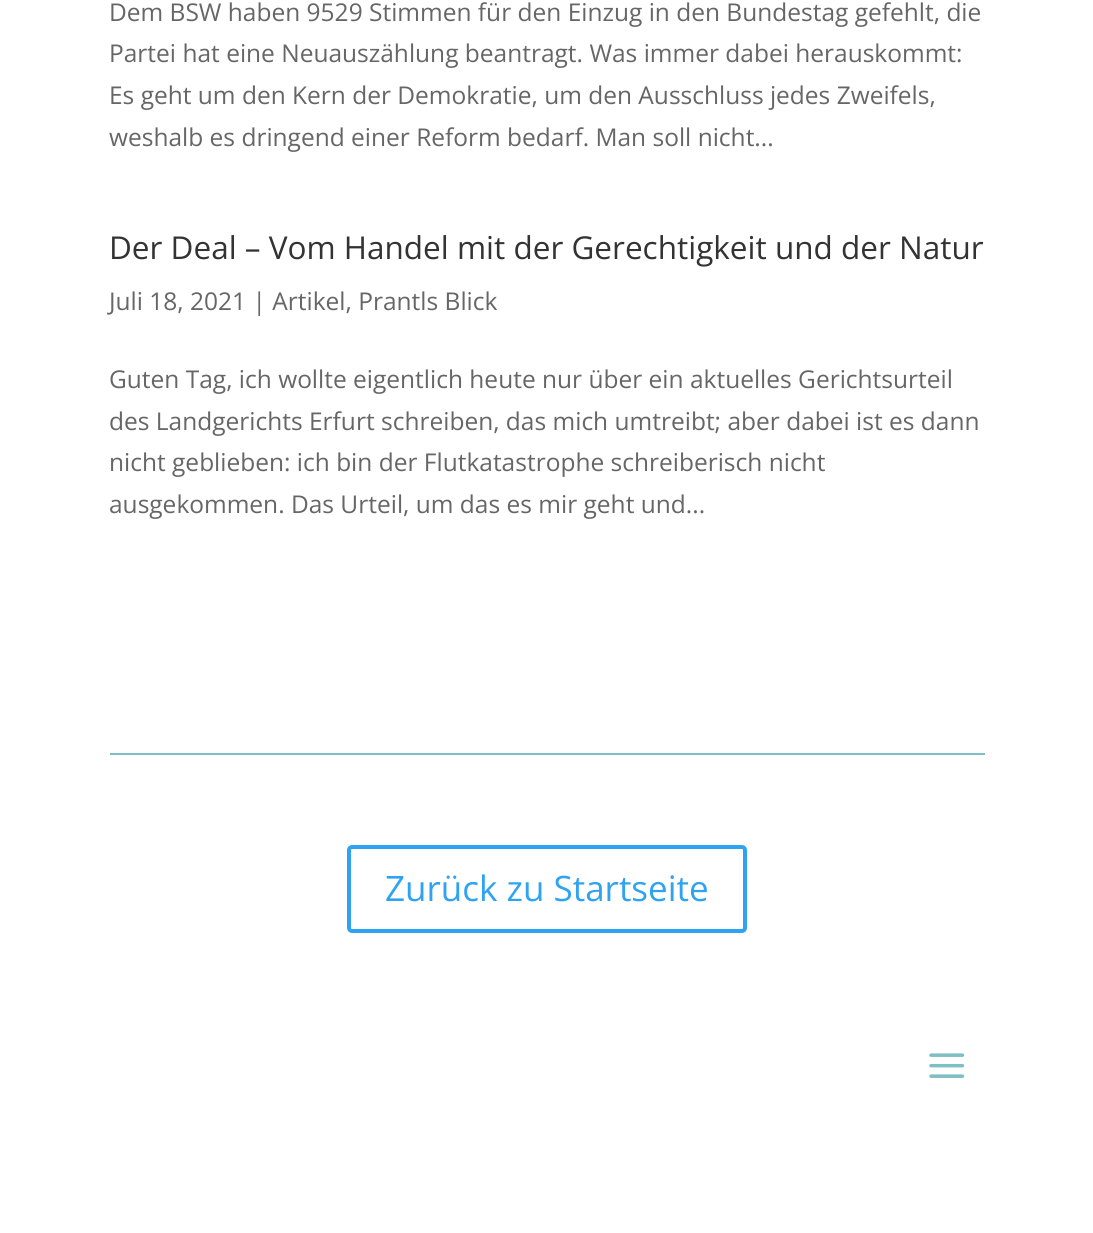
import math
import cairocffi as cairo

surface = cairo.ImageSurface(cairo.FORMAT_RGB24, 1093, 1233)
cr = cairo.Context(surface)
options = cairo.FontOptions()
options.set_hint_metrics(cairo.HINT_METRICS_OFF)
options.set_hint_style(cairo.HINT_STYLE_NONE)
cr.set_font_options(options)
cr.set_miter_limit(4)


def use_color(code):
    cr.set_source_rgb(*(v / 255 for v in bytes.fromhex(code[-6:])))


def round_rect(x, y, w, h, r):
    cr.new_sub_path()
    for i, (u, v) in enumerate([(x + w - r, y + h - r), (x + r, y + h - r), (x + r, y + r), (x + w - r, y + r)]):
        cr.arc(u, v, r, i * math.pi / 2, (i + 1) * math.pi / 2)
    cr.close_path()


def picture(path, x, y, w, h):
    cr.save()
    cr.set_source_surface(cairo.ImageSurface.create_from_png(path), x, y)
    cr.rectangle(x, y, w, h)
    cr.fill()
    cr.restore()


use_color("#ffffff")
cr.paint()
cr.select_font_face("Open Sans")
cr.set_font_size(24.5)
use_color("#666666")
cr.move_to(109, 21)
cr.show_text("Dem BSW haben 9529 Stimmen für den Einzug in den Bundestag gefehlt, die")
cr.move_to(109, 62)
cr.show_text("Partei hat eine Neuauszählung beantragt. Was immer dabei herauskommt:")
cr.move_to(109, 104)
cr.show_text("Es geht um den Kern der Demokratie, um den Ausschluss jedes Zweifels,")
cr.move_to(109, 146)
cr.show_text("weshalb es dringend einer Reform bedarf. Man soll nicht...")
cr.set_font_size(31.5)
use_color("#333333")
cr.move_to(109, 259)
cr.show_text("Der Deal – Vom Handel mit der Gerechtigkeit und der Natur")
cr.set_font_size(24.5)
use_color("#666666")
cr.move_to(109, 310)
cr.show_text("Juli 18, 2021 | Artikel, Prantls Blick")
cr.move_to(109, 388)
cr.show_text("Guten Tag, ich wollte eigentlich heute nur über ein aktuelles Gerichtsurteil")
cr.move_to(109, 430)
cr.show_text("des Landgerichts Erfurt schreiben, das mich umtreibt; aber dabei ist es dann")
cr.move_to(109, 471)
cr.show_text("nicht geblieben: ich bin der Flutkatastrophe schreiberisch nicht")
cr.move_to(109, 513)
cr.show_text("ausgekommen. Das Urteil, um das es mir geht und...")
use_color("#7ebec5")
cr.rectangle(110, 753, 875, 2)
cr.fill()
round_rect(349, 847, 396, 84, 3)
use_color("#2ea3f2")
cr.set_line_width(4)
cr.stroke()
cr.set_font_size(35)
cr.move_to(385, 901)
cr.show_text("Zurück zu Startseite")
picture("img1.png", 929, 1053, 36, 25)
surface.write_to_png("result.png")
